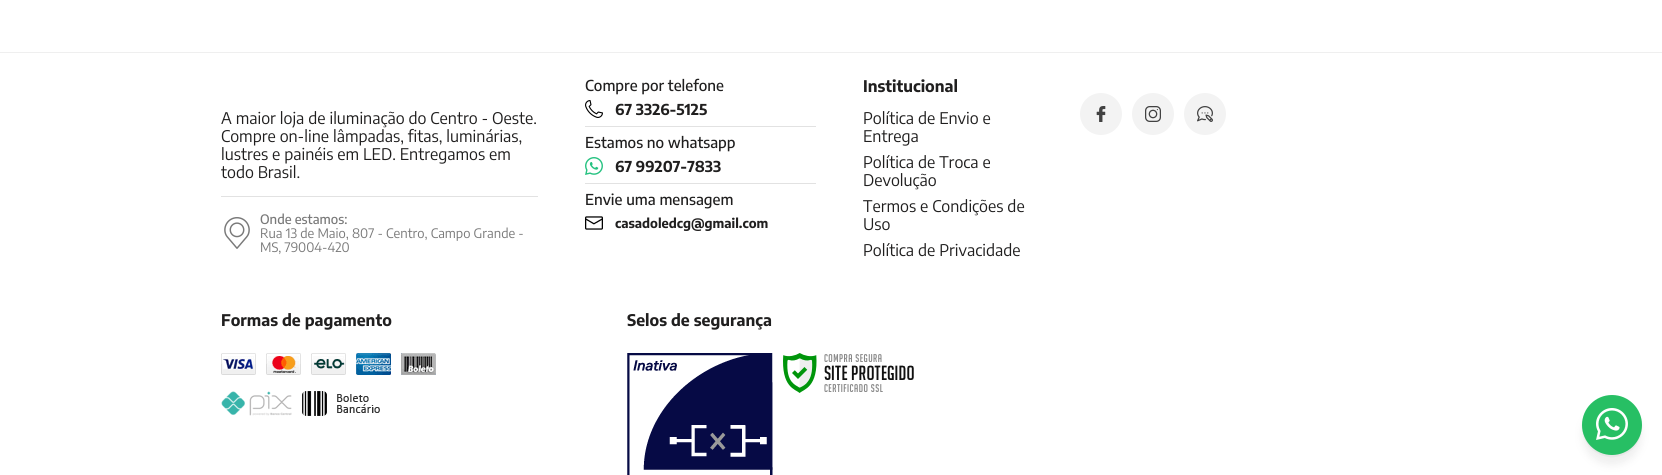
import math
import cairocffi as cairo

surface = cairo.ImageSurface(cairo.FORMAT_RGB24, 1662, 475)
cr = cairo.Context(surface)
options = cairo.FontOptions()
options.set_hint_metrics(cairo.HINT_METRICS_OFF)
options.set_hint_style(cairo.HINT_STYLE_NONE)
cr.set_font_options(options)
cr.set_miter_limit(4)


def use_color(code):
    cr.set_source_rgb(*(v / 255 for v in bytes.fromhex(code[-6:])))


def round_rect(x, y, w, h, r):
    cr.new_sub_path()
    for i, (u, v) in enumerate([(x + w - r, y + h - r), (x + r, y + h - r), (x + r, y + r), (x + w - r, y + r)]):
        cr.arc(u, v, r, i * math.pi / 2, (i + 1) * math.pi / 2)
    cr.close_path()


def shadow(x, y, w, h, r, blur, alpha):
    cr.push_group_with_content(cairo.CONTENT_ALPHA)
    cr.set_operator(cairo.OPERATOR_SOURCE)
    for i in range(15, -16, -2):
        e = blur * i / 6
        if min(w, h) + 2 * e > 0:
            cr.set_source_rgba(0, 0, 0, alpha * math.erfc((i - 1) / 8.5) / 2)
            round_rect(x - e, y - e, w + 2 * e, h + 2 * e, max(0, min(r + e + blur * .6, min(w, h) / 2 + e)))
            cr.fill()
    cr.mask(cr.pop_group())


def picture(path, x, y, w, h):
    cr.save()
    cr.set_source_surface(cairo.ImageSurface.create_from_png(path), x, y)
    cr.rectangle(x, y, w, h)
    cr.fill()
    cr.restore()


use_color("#ffffff")
cr.paint()
use_color("#efefef")
cr.rectangle(0, 52, 1662, 1)
cr.fill()
cr.select_font_face("Encode Sans Condensed")
cr.set_font_size(16)
use_color("#201f1f")
cr.move_to(221, 124)
cr.show_text("A maior loja de iluminação do Centro - Oeste.")
cr.move_to(221, 142)
cr.show_text("Compre on-line lâmpadas, fitas, luminárias,")
cr.move_to(221, 160)
cr.show_text("lustres e painéis em LED. Entregamos em")
cr.move_to(221, 178)
cr.show_text("todo Brasil.")
use_color("#e2e2e2")
cr.rectangle(221, 196, 317, 1)
cr.fill()
picture("img1.png", 224, 217, 26, 32)
cr.select_font_face("Encode Sans Condensed Medium")
cr.set_font_size(13)
use_color("#797979")
cr.move_to(260, 224)
cr.show_text("Onde estamos:")
cr.select_font_face("Encode Sans Condensed")
cr.move_to(260, 238)
cr.show_text("Rua 13 de Maio, 807 - Centro, Campo Grande -")
cr.move_to(260, 252)
cr.show_text("MS, 79004-420")
use_color("#e2e2e2")
cr.rectangle(585, 126, 231, 1)
cr.fill()
cr.select_font_face("Encode Sans Condensed Medium")
cr.set_font_size(15)
use_color("#201f1f")
cr.move_to(585, 91)
cr.show_text("Compre por telefone")
picture("img2.png", 585, 100, 18, 18)
cr.select_font_face("Encode Sans Condensed", cairo.FONT_SLANT_NORMAL, cairo.FONT_WEIGHT_BOLD)
cr.move_to(615, 115)
cr.show_text("67 3326-5125")
use_color("#e2e2e2")
cr.rectangle(585, 183, 231, 1)
cr.fill()
cr.select_font_face("Encode Sans Condensed Medium")
use_color("#201f1f")
cr.move_to(585, 148)
cr.show_text("Estamos no whatsapp")
picture("img3.png", 585, 157, 18, 18)
cr.select_font_face("Encode Sans Condensed", cairo.FONT_SLANT_NORMAL, cairo.FONT_WEIGHT_BOLD)
cr.move_to(615, 172)
cr.show_text("67 99207-7833")
cr.select_font_face("Encode Sans Condensed Medium")
cr.move_to(585, 205)
cr.show_text("Envie uma mensagem")
picture("img4.png", 585, 216, 18, 14)
cr.select_font_face("Encode Sans Condensed", cairo.FONT_SLANT_NORMAL, cairo.FONT_WEIGHT_BOLD)
cr.set_font_size(13)
cr.move_to(615, 228)
cr.show_text("casadoledcg@gmail.com")
cr.set_font_size(16)
cr.move_to(863, 92)
cr.show_text("Institucional")
cr.select_font_face("Encode Sans Condensed")
cr.move_to(863, 124)
cr.show_text("Política de Envio e")
cr.move_to(863, 142)
cr.show_text("Entrega")
cr.move_to(863, 168)
cr.show_text("Política de Troca e")
cr.move_to(863, 186)
cr.show_text("Devolução")
cr.move_to(863, 212)
cr.show_text("Termos e Condições de")
cr.move_to(863, 230)
cr.show_text("Uso")
cr.move_to(863, 256)
cr.show_text("Política de Privacidade")
use_color("#f3f3f3")
cr.new_path()
cr.arc(1101, 114, 21, 0, 2 * math.pi)
cr.fill()
picture("img5.png", 1096, 106, 10, 16)
cr.arc(1153, 114, 21, 0, 2 * math.pi)
cr.fill()
picture("img6.png", 1145, 106, 16, 16)
cr.arc(1205, 114, 21, 0, 2 * math.pi)
cr.fill()
picture("img7.png", 1197, 106, 16, 16)
cr.select_font_face("Encode Sans Condensed", cairo.FONT_SLANT_NORMAL, cairo.FONT_WEIGHT_BOLD)
use_color("#201f1f")
cr.move_to(221, 326)
cr.show_text("Formas de pagamento")
picture("img8.png", 221, 353, 35, 22)
picture("img9.png", 266, 353, 35, 22)
picture("img10.png", 311, 353, 35, 22)
picture("img11.png", 356, 353, 35, 22)
picture("img12.png", 401, 353, 35, 22)
picture("img13.png", 221, 391, 71, 25)
picture("img14.png", 302, 391, 78, 25)
cr.move_to(627, 326)
cr.show_text("Selos de segurança")
picture("img15.png", 627, 353, 146, 122)
picture("img16.png", 783, 353, 131, 40)
use_color("#676767")
shadow(1582, 405, 60, 60, 30, 4, 0.1)
use_color("#000000")
shadow(1582, 397, 60, 60, 30, 0.5, 0.04)
use_color("#27bf64")
cr.arc(1612, 425, 30, 0, 2 * math.pi)
cr.fill()
picture("img17.png", 1596, 408, 32, 32)
surface.write_to_png("result.png")
